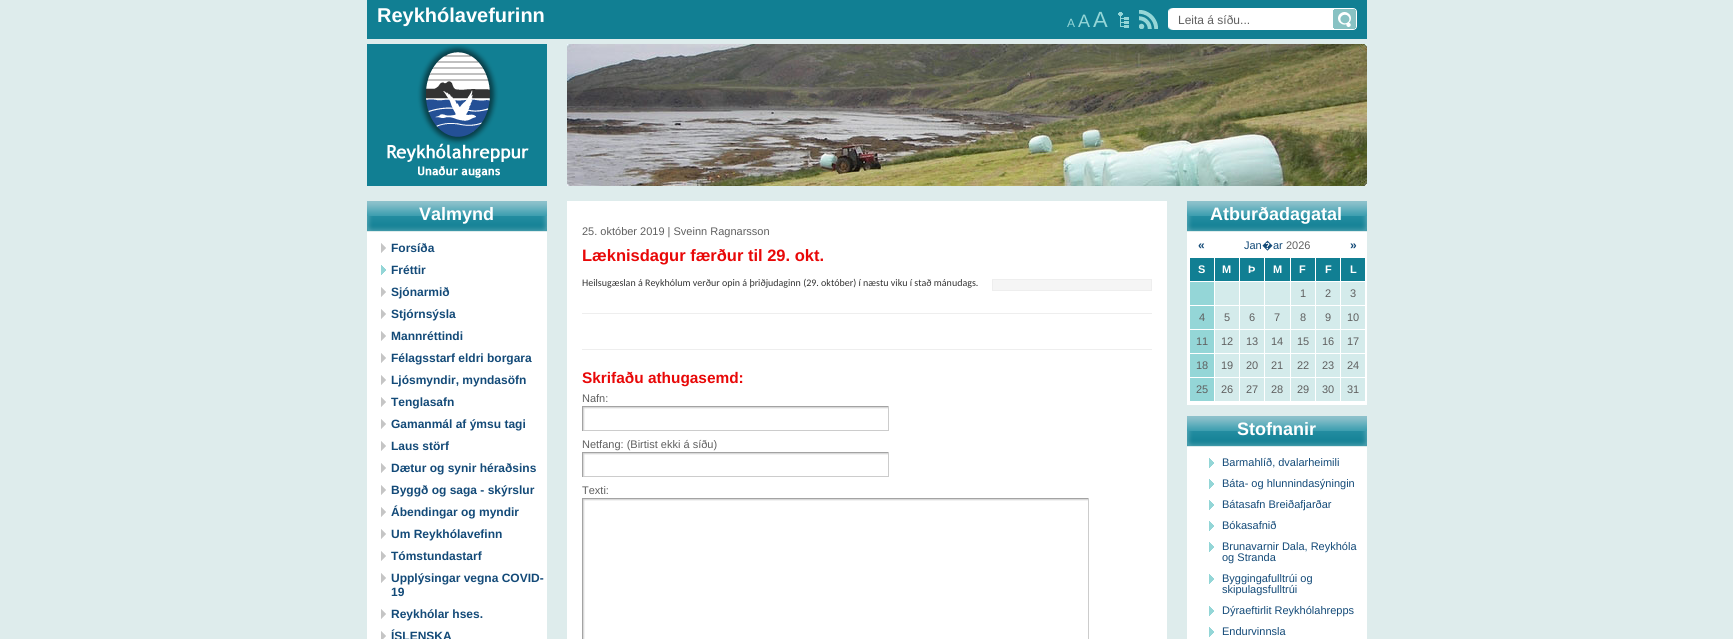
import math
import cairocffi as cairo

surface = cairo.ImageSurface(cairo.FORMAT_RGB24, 1733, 639)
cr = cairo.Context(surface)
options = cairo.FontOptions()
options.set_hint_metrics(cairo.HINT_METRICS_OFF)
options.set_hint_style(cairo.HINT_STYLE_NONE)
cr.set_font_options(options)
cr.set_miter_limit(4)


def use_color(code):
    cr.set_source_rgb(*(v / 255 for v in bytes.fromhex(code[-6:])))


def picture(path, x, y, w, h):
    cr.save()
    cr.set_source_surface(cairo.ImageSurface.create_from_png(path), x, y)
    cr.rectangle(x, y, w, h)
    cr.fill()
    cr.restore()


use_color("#deecec")
cr.paint()
use_color("#117f93")
cr.rectangle(367, 0, 1000, 39)
cr.fill()
cr.select_font_face("Liberation Sans", cairo.FONT_SLANT_NORMAL, cairo.FONT_WEIGHT_BOLD)
cr.set_font_size(20)
use_color("#ffffff")
cr.move_to(377, 22)
cr.show_text("Reykhólavefurinn")
cr.select_font_face("Liberation Sans")
cr.set_font_size(12)
use_color("#94d6d7")
cr.move_to(1067, 27)
cr.show_text("A")
cr.set_font_size(18)
cr.move_to(1078, 27)
cr.show_text("A")
cr.set_font_size(22)
cr.move_to(1093, 27)
cr.show_text("A")
picture("img1.png", 1118, 12, 11, 16)
picture("img2.png", 1139, 10, 19, 19)
use_color("#ffffff")
cr.rectangle(1173, 8, 160, 22)
cr.fill()
picture("img3.png", 1168, 8, 5, 22)
cr.set_font_size(12)
use_color("#5f5f5f")
cr.move_to(1178, 24)
cr.show_text("Leita á síðu...")
picture("img4.png", 1333, 8, 24, 22)
picture("img5.png", 367, 44, 180, 142)
picture("img6.png", 567, 44, 800, 142)
use_color("#ffffff")
cr.rectangle(367, 232, 180, 407)
cr.fill()
picture("img7.png", 367, 201, 180, 31)
cr.select_font_face("Liberation Sans", cairo.FONT_SLANT_NORMAL, cairo.FONT_WEIGHT_BOLD)
cr.set_font_size(18)
cr.move_to(419, 220)
cr.show_text("Valmynd")
picture("img8.png", 381, 243, 5, 10)
cr.set_font_size(12)
use_color("#134a78")
cr.move_to(391, 252)
cr.show_text("Forsíða")
picture("img9.png", 381, 265, 5, 10)
cr.move_to(391, 274)
cr.show_text("Fréttir")
picture("img8.png", 381, 287, 5, 10)
cr.move_to(391, 296)
cr.show_text("Sjónarmið")
picture("img8.png", 381, 309, 5, 10)
cr.move_to(391, 318)
cr.show_text("Stjórnsýsla")
picture("img8.png", 381, 331, 5, 10)
cr.move_to(391, 340)
cr.show_text("Mannréttindi")
picture("img8.png", 381, 353, 5, 10)
cr.move_to(391, 362)
cr.show_text("Félagsstarf eldri borgara")
picture("img8.png", 381, 375, 5, 10)
cr.move_to(391, 384)
cr.show_text("Ljósmyndir, myndasöfn")
picture("img8.png", 381, 397, 5, 10)
cr.move_to(391, 406)
cr.show_text("Tenglasafn")
picture("img8.png", 381, 419, 5, 10)
cr.move_to(391, 428)
cr.show_text("Gamanmál af ýmsu tagi")
picture("img8.png", 381, 441, 5, 10)
cr.move_to(391, 450)
cr.show_text("Laus störf")
picture("img8.png", 381, 463, 5, 10)
cr.move_to(391, 472)
cr.show_text("Dætur og synir héraðsins")
picture("img8.png", 381, 485, 5, 10)
cr.move_to(391, 494)
cr.show_text("Byggð og saga - skýrslur")
picture("img8.png", 381, 507, 5, 10)
cr.move_to(391, 516)
cr.show_text("Ábendingar og myndir")
picture("img8.png", 381, 529, 5, 10)
cr.move_to(391, 538)
cr.show_text("Um Reykhólavefinn")
picture("img8.png", 381, 551, 5, 10)
cr.move_to(391, 560)
cr.show_text("Tómstundastarf")
picture("img8.png", 381, 573, 5, 10)
cr.move_to(391, 582)
cr.show_text("Upplýsingar vegna COVID-")
cr.move_to(391, 596)
cr.show_text("19")
picture("img8.png", 381, 609, 5, 10)
cr.move_to(391, 618)
cr.show_text("Reykhólar hses.")
picture("img10.png", 381, 631, 5, 8)
cr.move_to(391, 640)
cr.show_text("ÍSLENSKA")
use_color("#ffffff")
cr.rectangle(567, 201, 600, 438)
cr.fill()
cr.select_font_face("Liberation Sans")
cr.set_font_size(11)
use_color("#5f5f5f")
cr.move_to(582, 235)
cr.show_text("25. október 2019 | Sveinn Ragnarsson")
cr.select_font_face("Liberation Sans", cairo.FONT_SLANT_NORMAL, cairo.FONT_WEIGHT_BOLD)
cr.set_font_size(16.5)
use_color("#e80808")
cr.move_to(582, 261)
cr.show_text("Læknisdagur færður til 29. okt.")
cr.select_font_face("Carlito")
cr.set_font_size(10)
use_color("#333333")
cr.move_to(582, 286)
cr.show_text("Heilsugæslan á Reykhólum verður opin á þriðjudaginn (29. október) í næstu viku í stað mánudags.")
use_color("#f5f5f5")
cr.rectangle(992.5, 279.5, 159, 11)
cr.fill_preserve()
use_color("#eeeeee")
cr.set_line_width(1)
cr.stroke()
cr.rectangle(582, 313, 570, 1)
cr.fill()
cr.rectangle(582, 349, 570, 1)
cr.fill()
cr.select_font_face("Liberation Sans", cairo.FONT_SLANT_NORMAL, cairo.FONT_WEIGHT_BOLD)
cr.set_font_size(15.4)
use_color("#e80808")
cr.move_to(582, 383)
cr.show_text("Skrifaðu athugasemd:")
cr.select_font_face("Liberation Sans")
cr.set_font_size(11)
use_color("#5f5f5f")
cr.move_to(582, 402)
cr.show_text("Nafn:")
picture("img11.png", 583, 407, 305, 23)
use_color("#a3a3a3")
cr.rectangle(582, 406, 307, 1)
cr.fill()
use_color("#cccccc")
cr.rectangle(888, 406, 1, 25)
cr.fill()
cr.rectangle(582, 430, 307, 1)
cr.fill()
use_color("#a3a3a3")
cr.rectangle(582, 406, 1, 25)
cr.fill()
use_color("#5f5f5f")
cr.move_to(582, 448)
cr.show_text("Netfang: (Birtist ekki á síðu)")
picture("img11.png", 583, 453, 305, 23)
use_color("#a3a3a3")
cr.rectangle(582, 452, 307, 1)
cr.fill()
use_color("#cccccc")
cr.rectangle(888, 452, 1, 25)
cr.fill()
cr.rectangle(582, 476, 307, 1)
cr.fill()
use_color("#a3a3a3")
cr.rectangle(582, 452, 1, 25)
cr.fill()
use_color("#5f5f5f")
cr.move_to(582, 494)
cr.show_text("Texti:")
picture("img12.png", 583, 499, 505, 140)
use_color("#a3a3a3")
cr.rectangle(582, 498, 507, 1)
cr.fill()
use_color("#cccccc")
cr.rectangle(1088, 498, 1, 141)
cr.fill()
use_color("#a3a3a3")
cr.rectangle(582, 498, 1, 141)
cr.fill()
use_color("#ffffff")
cr.rectangle(1187, 232, 180, 173)
cr.fill()
picture("img7.png", 1187, 201, 180, 31)
cr.select_font_face("Liberation Sans", cairo.FONT_SLANT_NORMAL, cairo.FONT_WEIGHT_BOLD)
cr.set_font_size(18)
cr.move_to(1210, 220)
cr.show_text("Atburðadagatal")
cr.set_font_size(12)
use_color("#134a78")
cr.move_to(1198, 249)
cr.show_text("«")
cr.select_font_face("Liberation Sans")
cr.set_font_size(11)
cr.move_to(1244, 249)
cr.show_text("Jan")
cr.select_font_face("Noto Sans")
cr.move_to(1262, 249)
cr.show_text("�")
cr.select_font_face("Liberation Sans")
cr.move_to(1273, 249)
cr.show_text("ar")
use_color("#5f5f5f")
cr.move_to(1286, 249)
cr.show_text("2026")
cr.select_font_face("Liberation Sans", cairo.FONT_SLANT_NORMAL, cairo.FONT_WEIGHT_BOLD)
cr.set_font_size(12)
use_color("#134a78")
cr.move_to(1350, 249)
cr.show_text("»")
use_color("#117f93")
cr.rectangle(1190, 258, 24, 23)
cr.fill()
cr.set_font_size(11)
use_color("#ffffff")
cr.move_to(1198, 273)
cr.show_text("S")
use_color("#117f93")
cr.rectangle(1215, 258, 24, 23)
cr.fill()
use_color("#ffffff")
cr.move_to(1222, 273)
cr.show_text("M")
use_color("#117f93")
cr.rectangle(1240, 258, 24, 23)
cr.fill()
use_color("#ffffff")
cr.move_to(1248, 273)
cr.show_text("Þ")
use_color("#117f93")
cr.rectangle(1265, 258, 25, 23)
cr.fill()
use_color("#ffffff")
cr.move_to(1273, 273)
cr.show_text("M")
use_color("#117f93")
cr.rectangle(1291, 258, 24, 23)
cr.fill()
use_color("#ffffff")
cr.move_to(1299, 273)
cr.show_text("F")
use_color("#117f93")
cr.rectangle(1316, 258, 24, 23)
cr.fill()
use_color("#ffffff")
cr.move_to(1325, 273)
cr.show_text("F")
use_color("#117f93")
cr.rectangle(1341, 258, 24, 23)
cr.fill()
use_color("#ffffff")
cr.move_to(1350, 273)
cr.show_text("L")
use_color("#94d6d7")
cr.rectangle(1190, 282, 24, 23)
cr.fill()
use_color("#d4ebeb")
cr.rectangle(1215, 282, 24, 23)
cr.fill()
cr.rectangle(1240, 282, 24, 23)
cr.fill()
cr.rectangle(1265, 282, 25, 23)
cr.fill()
cr.rectangle(1291, 282, 24, 23)
cr.fill()
cr.select_font_face("Liberation Sans")
use_color("#5f5f5f")
cr.move_to(1300, 297)
cr.show_text("1")
use_color("#d4ebeb")
cr.rectangle(1316, 282, 24, 23)
cr.fill()
use_color("#5f5f5f")
cr.move_to(1325, 297)
cr.show_text("2")
use_color("#d4ebeb")
cr.rectangle(1341, 282, 24, 23)
cr.fill()
use_color("#5f5f5f")
cr.move_to(1350, 297)
cr.show_text("3")
use_color("#94d6d7")
cr.rectangle(1190, 306, 24, 23)
cr.fill()
use_color("#5f5f5f")
cr.move_to(1199, 321)
cr.show_text("4")
use_color("#d4ebeb")
cr.rectangle(1215, 306, 24, 23)
cr.fill()
use_color("#5f5f5f")
cr.move_to(1224, 321)
cr.show_text("5")
use_color("#d4ebeb")
cr.rectangle(1240, 306, 24, 23)
cr.fill()
use_color("#5f5f5f")
cr.move_to(1249, 321)
cr.show_text("6")
use_color("#d4ebeb")
cr.rectangle(1265, 306, 25, 23)
cr.fill()
use_color("#5f5f5f")
cr.move_to(1274, 321)
cr.show_text("7")
use_color("#d4ebeb")
cr.rectangle(1291, 306, 24, 23)
cr.fill()
use_color("#5f5f5f")
cr.move_to(1300, 321)
cr.show_text("8")
use_color("#d4ebeb")
cr.rectangle(1316, 306, 24, 23)
cr.fill()
use_color("#5f5f5f")
cr.move_to(1325, 321)
cr.show_text("9")
use_color("#d4ebeb")
cr.rectangle(1341, 306, 24, 23)
cr.fill()
use_color("#5f5f5f")
cr.move_to(1347, 321)
cr.show_text("10")
use_color("#94d6d7")
cr.rectangle(1190, 330, 24, 23)
cr.fill()
use_color("#5f5f5f")
cr.move_to(1196, 345)
cr.show_text("11")
use_color("#d4ebeb")
cr.rectangle(1215, 330, 24, 23)
cr.fill()
use_color("#5f5f5f")
cr.move_to(1221, 345)
cr.show_text("12")
use_color("#d4ebeb")
cr.rectangle(1240, 330, 24, 23)
cr.fill()
use_color("#5f5f5f")
cr.move_to(1246, 345)
cr.show_text("13")
use_color("#d4ebeb")
cr.rectangle(1265, 330, 25, 23)
cr.fill()
use_color("#5f5f5f")
cr.move_to(1271, 345)
cr.show_text("14")
use_color("#d4ebeb")
cr.rectangle(1291, 330, 24, 23)
cr.fill()
use_color("#5f5f5f")
cr.move_to(1297, 345)
cr.show_text("15")
use_color("#d4ebeb")
cr.rectangle(1316, 330, 24, 23)
cr.fill()
use_color("#5f5f5f")
cr.move_to(1322, 345)
cr.show_text("16")
use_color("#d4ebeb")
cr.rectangle(1341, 330, 24, 23)
cr.fill()
use_color("#5f5f5f")
cr.move_to(1347, 345)
cr.show_text("17")
use_color("#94d6d7")
cr.rectangle(1190, 354, 24, 23)
cr.fill()
use_color("#5f5f5f")
cr.move_to(1196, 369)
cr.show_text("18")
use_color("#d4ebeb")
cr.rectangle(1215, 354, 24, 23)
cr.fill()
use_color("#5f5f5f")
cr.move_to(1221, 369)
cr.show_text("19")
use_color("#d4ebeb")
cr.rectangle(1240, 354, 24, 23)
cr.fill()
use_color("#5f5f5f")
cr.move_to(1246, 369)
cr.show_text("20")
use_color("#d4ebeb")
cr.rectangle(1265, 354, 25, 23)
cr.fill()
use_color("#5f5f5f")
cr.move_to(1271, 369)
cr.show_text("21")
use_color("#d4ebeb")
cr.rectangle(1291, 354, 24, 23)
cr.fill()
use_color("#5f5f5f")
cr.move_to(1297, 369)
cr.show_text("22")
use_color("#d4ebeb")
cr.rectangle(1316, 354, 24, 23)
cr.fill()
use_color("#5f5f5f")
cr.move_to(1322, 369)
cr.show_text("23")
use_color("#d4ebeb")
cr.rectangle(1341, 354, 24, 23)
cr.fill()
use_color("#5f5f5f")
cr.move_to(1347, 369)
cr.show_text("24")
use_color("#94d6d7")
cr.rectangle(1190, 378, 24, 23)
cr.fill()
use_color("#5f5f5f")
cr.move_to(1196, 393)
cr.show_text("25")
use_color("#d4ebeb")
cr.rectangle(1215, 378, 24, 23)
cr.fill()
use_color("#5f5f5f")
cr.move_to(1221, 393)
cr.show_text("26")
use_color("#d4ebeb")
cr.rectangle(1240, 378, 24, 23)
cr.fill()
use_color("#5f5f5f")
cr.move_to(1246, 393)
cr.show_text("27")
use_color("#d4ebeb")
cr.rectangle(1265, 378, 25, 23)
cr.fill()
use_color("#5f5f5f")
cr.move_to(1271, 393)
cr.show_text("28")
use_color("#d4ebeb")
cr.rectangle(1291, 378, 24, 23)
cr.fill()
use_color("#5f5f5f")
cr.move_to(1297, 393)
cr.show_text("29")
use_color("#d4ebeb")
cr.rectangle(1316, 378, 24, 23)
cr.fill()
use_color("#5f5f5f")
cr.move_to(1322, 393)
cr.show_text("30")
use_color("#d4ebeb")
cr.rectangle(1341, 378, 24, 23)
cr.fill()
use_color("#5f5f5f")
cr.move_to(1347, 393)
cr.show_text("31")
use_color("#ffffff")
cr.rectangle(1187, 447, 180, 192)
cr.fill()
picture("img7.png", 1187, 416, 180, 31)
cr.select_font_face("Liberation Sans", cairo.FONT_SLANT_NORMAL, cairo.FONT_WEIGHT_BOLD)
cr.set_font_size(18)
cr.move_to(1237, 435)
cr.show_text("Stofnanir")
picture("img9.png", 1209, 458, 5, 10)
cr.select_font_face("Liberation Sans")
cr.set_font_size(11)
use_color("#134a78")
cr.move_to(1222, 466)
cr.show_text("Barmahlíð, dvalarheimili")
picture("img9.png", 1209, 479, 5, 10)
cr.move_to(1222, 487)
cr.show_text("Báta- og hlunnindasýningin")
picture("img9.png", 1209, 500, 5, 10)
cr.move_to(1222, 508)
cr.show_text("Bátasafn Breiðafjarðar")
picture("img9.png", 1209, 521, 5, 10)
cr.move_to(1222, 529)
cr.show_text("Bókasafnið")
picture("img9.png", 1209, 542, 5, 10)
cr.move_to(1222, 550)
cr.show_text("Brunavarnir Dala, Reykhóla")
cr.move_to(1222, 561)
cr.show_text("og Stranda")
picture("img9.png", 1209, 574, 5, 10)
cr.move_to(1222, 582)
cr.show_text("Byggingafulltrúi og")
cr.move_to(1222, 593)
cr.show_text("skipulagsfulltrúi")
picture("img9.png", 1209, 606, 5, 10)
cr.move_to(1222, 614)
cr.show_text("Dýraeftirlit Reykhólahrepps")
picture("img9.png", 1209, 627, 5, 10)
cr.move_to(1222, 635)
cr.show_text("Endurvinnsla")
surface.write_to_png("result.png")
